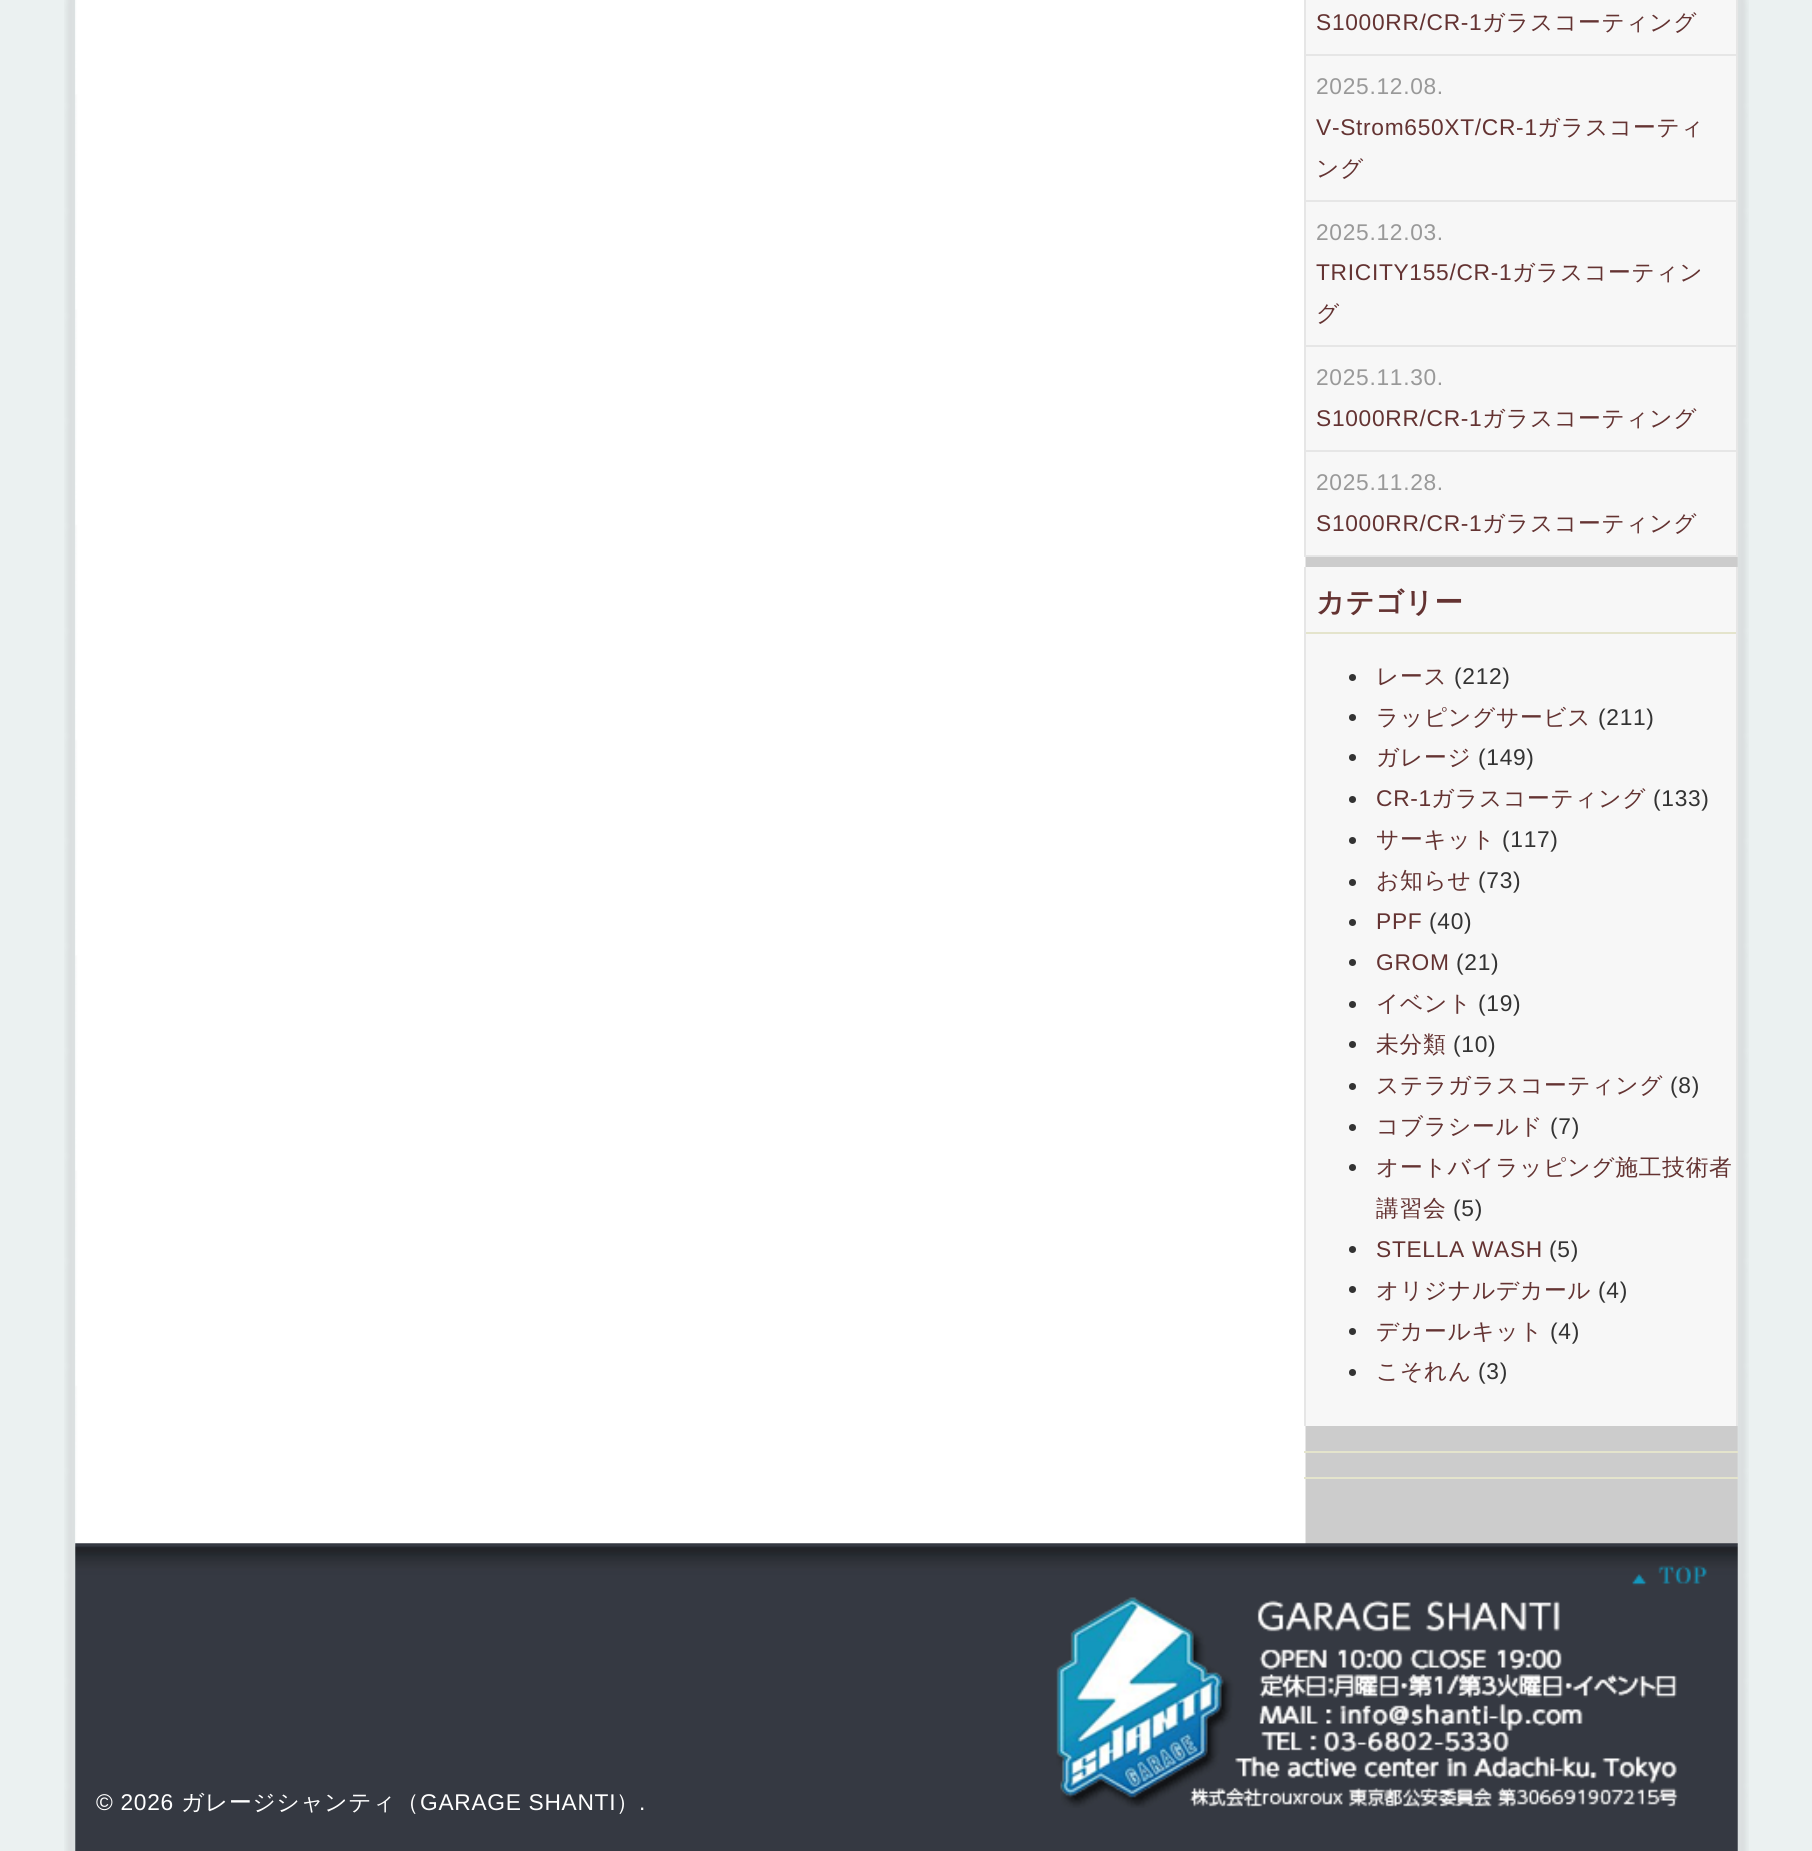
import math
import cairocffi as cairo

surface = cairo.ImageSurface(cairo.FORMAT_RGB24, 1812, 1851)
cr = cairo.Context(surface)
options = cairo.FontOptions()
options.set_hint_metrics(cairo.HINT_METRICS_OFF)
options.set_hint_style(cairo.HINT_STYLE_NONE)
cr.set_font_options(options)
cr.set_miter_limit(4)


def use_color(code):
    cr.set_source_rgb(*(v / 255 for v in bytes.fromhex(code[-6:])))


def spaced_text(x, y, s, letter, word):
    cr.move_to(x, y)
    for ch in s:
        cr.show_text(ch)
        cr.rel_move_to(letter + word * (ch == ' '), 0)


def picture(path, x, y, w, h):
    cr.save()
    cr.set_source_surface(cairo.ImageSurface.create_from_png(path), x, y)
    cr.rectangle(x, y, w, h)
    cr.fill()
    cr.restore()


use_color("#ebf1f1")
cr.paint()
picture("img1.png", 64, 0, 1685, 1851)
picture("img2.png", 75, 0, 1663, 1545)
use_color("#f7f7f7")
cr.rectangle(1306, 0, 430, 555)
cr.fill()
use_color("#e6e6e6")
cr.rectangle(1736, 0, 2, 557)
cr.fill()
cr.rectangle(1304, 0, 1, 557)
cr.fill()
cr.rectangle(1306, 54, 430, 2)
cr.fill()
cr.select_font_face("Liberation Sans")
cr.set_font_size(22.75)
use_color("#643332")
spaced_text(1316, 30, "S1000RR/CR-1", 0.7, 0)
cr.select_font_face("WenQuanYi Zen Hei Medium")
spaced_text(1482, 30, "ガラスコーティング", 0.7, 0)
cr.select_font_face("Liberation Sans")
use_color("#999999")
spaced_text(1316, 94, "2025.12.08.", 0.7, 0)
use_color("#e6e6e6")
cr.rectangle(1306, 200, 430, 2)
cr.fill()
use_color("#643332")
spaced_text(1316, 135, "V-Strom650XT/CR-1", 0.7, 0)
cr.select_font_face("WenQuanYi Zen Hei Medium")
spaced_text(1537, 135, "ガラスコーティ", 0.7, 0)
spaced_text(1316, 176, "ング", 0.7, 0)
cr.select_font_face("Liberation Sans")
use_color("#999999")
spaced_text(1316, 240, "2025.12.03.", 0.7, 0)
use_color("#e6e6e6")
cr.rectangle(1306, 345, 430, 2)
cr.fill()
use_color("#643332")
spaced_text(1316, 280, "TRICITY155/CR-1", 0.7, 0)
cr.select_font_face("WenQuanYi Zen Hei Medium")
spaced_text(1512, 280, "ガラスコーティン", 0.7, 0)
spaced_text(1316, 321, "グ", 0.7, 0)
cr.select_font_face("Liberation Sans")
use_color("#999999")
spaced_text(1316, 385, "2025.11.30.", 0.7, 0)
use_color("#e6e6e6")
cr.rectangle(1306, 450, 430, 2)
cr.fill()
use_color("#643332")
spaced_text(1316, 426, "S1000RR/CR-1", 0.7, 0)
cr.select_font_face("WenQuanYi Zen Hei Medium")
spaced_text(1482, 426, "ガラスコーティング", 0.7, 0)
cr.select_font_face("Liberation Sans")
use_color("#999999")
spaced_text(1316, 490, "2025.11.28.", 0.7, 0)
use_color("#e6e6e6")
cr.rectangle(1306, 555, 430, 2)
cr.fill()
use_color("#643332")
spaced_text(1316, 531, "S1000RR/CR-1", 0.7, 0)
cr.select_font_face("WenQuanYi Zen Hei Medium")
spaced_text(1482, 531, "ガラスコーティング", 0.7, 0)
use_color("#f7f7f7")
cr.rectangle(1306, 567, 430, 859)
cr.fill()
use_color("#e6e6e6")
cr.rectangle(1736, 567, 2, 859)
cr.fill()
cr.rectangle(1304, 567, 1, 859)
cr.fill()
use_color("#e4e4cc")
cr.rectangle(1306, 632, 430, 2)
cr.fill()
cr.select_font_face("WenQuanYi Zen Hei", cairo.FONT_SLANT_NORMAL, cairo.FONT_WEIGHT_BOLD)
cr.set_font_size(28.25)
use_color("#643332")
spaced_text(1316, 612, "カテゴリー", 0.7, 0)
use_color("#333333")
cr.new_path()
cr.arc(1352.5, 677.5, 3.5, 0, 2 * math.pi)
cr.fill()
cr.select_font_face("WenQuanYi Zen Hei Medium")
cr.set_font_size(22.75)
use_color("#643332")
spaced_text(1376, 684, "レース", 0.7, 0)
cr.select_font_face("Liberation Sans")
use_color("#333333")
spaced_text(1454, 684, "(212)", 0.7, 0)
cr.new_path()
cr.arc(1352.5, 717.5, 3.5, 0, 2 * math.pi)
cr.fill()
cr.select_font_face("WenQuanYi Zen Hei Medium")
use_color("#643332")
spaced_text(1376, 725, "ラッピングサービス", 0.7, 0)
cr.select_font_face("Liberation Sans")
use_color("#333333")
spaced_text(1598, 725, "(211)", 0.7, 0)
cr.new_path()
cr.arc(1352.5, 757.5, 3.5, 0, 2 * math.pi)
cr.fill()
cr.select_font_face("WenQuanYi Zen Hei Medium")
use_color("#643332")
spaced_text(1376, 765, "ガレージ", 0.7, 0)
cr.select_font_face("Liberation Sans")
use_color("#333333")
spaced_text(1478, 765, "(149)", 0.7, 0)
cr.new_path()
cr.arc(1352.5, 799.5, 3.5, 0, 2 * math.pi)
cr.fill()
use_color("#643332")
spaced_text(1376, 806, "CR-1", 0.7, 0)
cr.select_font_face("WenQuanYi Zen Hei Medium")
spaced_text(1431, 806, "ガラスコーティング", 0.7, 0)
cr.select_font_face("Liberation Sans")
use_color("#333333")
spaced_text(1653, 806, "(133)", 0.7, 0)
cr.new_path()
cr.arc(1352.5, 840.5, 3.5, 0, 2 * math.pi)
cr.fill()
cr.select_font_face("WenQuanYi Zen Hei Medium")
use_color("#643332")
spaced_text(1376, 847, "サーキット", 0.7, 0)
cr.select_font_face("Liberation Sans")
use_color("#333333")
spaced_text(1502, 847, "(117)", 0.7, 0)
cr.new_path()
cr.arc(1352.5, 882.5, 3.5, 0, 2 * math.pi)
cr.fill()
cr.select_font_face("WenQuanYi Zen Hei Medium")
use_color("#643332")
spaced_text(1376, 888, "お知らせ", 0.7, 0)
cr.select_font_face("Liberation Sans")
use_color("#333333")
spaced_text(1478, 888, "(73)", 0.7, 0)
cr.new_path()
cr.arc(1352.5, 922.5, 3.5, 0, 2 * math.pi)
cr.fill()
use_color("#643332")
spaced_text(1376, 929, "PPF", 0.7, 0)
use_color("#333333")
spaced_text(1429, 929, "(40)", 0.7, 0)
cr.new_path()
cr.arc(1352.5, 962.5, 3.5, 0, 2 * math.pi)
cr.fill()
use_color("#643332")
spaced_text(1376, 970, "GROM", 0.7, 0)
use_color("#333333")
spaced_text(1456, 970, "(21)", 0.7, 0)
cr.new_path()
cr.arc(1352.5, 1004.5, 3.5, 0, 2 * math.pi)
cr.fill()
cr.select_font_face("WenQuanYi Zen Hei Medium")
use_color("#643332")
spaced_text(1376, 1011, "イベント", 0.7, 0)
cr.select_font_face("Liberation Sans")
use_color("#333333")
spaced_text(1478, 1011, "(19)", 0.7, 0)
cr.new_path()
cr.arc(1352.5, 1044.5, 3.5, 0, 2 * math.pi)
cr.fill()
cr.select_font_face("WenQuanYi Zen Hei Medium")
use_color("#643332")
spaced_text(1376, 1052, "未分類", 0.7, 0)
cr.select_font_face("Liberation Sans")
use_color("#333333")
spaced_text(1453, 1052, "(10)", 0.7, 0)
cr.new_path()
cr.arc(1352.5, 1086.5, 3.5, 0, 2 * math.pi)
cr.fill()
cr.select_font_face("WenQuanYi Zen Hei Medium")
use_color("#643332")
spaced_text(1376, 1093, "ステラガラスコーティング", 0.7, 0)
cr.select_font_face("Liberation Sans")
use_color("#333333")
spaced_text(1670, 1093, "(8)", 0.7, 0)
cr.new_path()
cr.arc(1352.5, 1127.5, 3.5, 0, 2 * math.pi)
cr.fill()
cr.select_font_face("WenQuanYi Zen Hei Medium")
use_color("#643332")
spaced_text(1376, 1134, "コブラシールド", 0.7, 0)
cr.select_font_face("Liberation Sans")
use_color("#333333")
spaced_text(1550, 1134, "(7)", 0.7, 0)
cr.new_path()
cr.arc(1352.5, 1167.5, 3.5, 0, 2 * math.pi)
cr.fill()
cr.select_font_face("WenQuanYi Zen Hei Medium")
use_color("#643332")
spaced_text(1376, 1175, "オートバイラッピング施工技術者", 0.7, 0)
spaced_text(1376, 1216, "講習会", 0.7, 0)
cr.select_font_face("Liberation Sans")
use_color("#333333")
spaced_text(1453, 1216, "(5)", 0.7, 0)
cr.new_path()
cr.arc(1352.5, 1249.5, 3.5, 0, 2 * math.pi)
cr.fill()
use_color("#643332")
spaced_text(1376, 1257, "STELLA WASH", 0.7, 0)
use_color("#333333")
spaced_text(1549, 1257, "(5)", 0.7, 0)
cr.new_path()
cr.arc(1352.5, 1289.5, 3.5, 0, 2 * math.pi)
cr.fill()
cr.select_font_face("WenQuanYi Zen Hei Medium")
use_color("#643332")
spaced_text(1376, 1298, "オリジナルデカール", 0.7, 0)
cr.select_font_face("Liberation Sans")
use_color("#333333")
spaced_text(1598, 1298, "(4)", 0.7, 0)
cr.new_path()
cr.arc(1352.5, 1331.5, 3.5, 0, 2 * math.pi)
cr.fill()
cr.select_font_face("WenQuanYi Zen Hei Medium")
use_color("#643332")
spaced_text(1376, 1339, "デカールキット", 0.7, 0)
cr.select_font_face("Liberation Sans")
use_color("#333333")
spaced_text(1550, 1339, "(4)", 0.7, 0)
cr.new_path()
cr.arc(1352.5, 1372.5, 3.5, 0, 2 * math.pi)
cr.fill()
cr.select_font_face("WenQuanYi Zen Hei Medium")
use_color("#643332")
spaced_text(1376, 1379, "こそれん", 0.7, 0)
cr.select_font_face("Liberation Sans")
use_color("#333333")
spaced_text(1478, 1379, "(3)", 0.7, 0)
use_color("#e4e4cc")
cr.rectangle(1304, 1451, 434, 2)
cr.fill()
cr.rectangle(1304, 1477, 434, 2)
cr.fill()
picture("img3.png", 75, 1543, 1663, 308)
picture("img4.png", 1632, 1565, 75, 21)
use_color("#ffffff")
spaced_text(96, 1810, "© 2026", 0.7, 0)
cr.select_font_face("WenQuanYi Zen Hei Medium")
spaced_text(181, 1810, "ガレージシャンティ（", 0.7, 0)
cr.select_font_face("Liberation Sans")
spaced_text(420, 1810, "GARAGE SHANTI", 0.7, 0)
cr.select_font_face("WenQuanYi Zen Hei Medium")
spaced_text(616, 1810, "）", 0.7, 0)
cr.select_font_face("Liberation Sans")
spaced_text(639, 1810, ".", 0.7, 0)
picture("img5.png", 1056, 1597, 623, 211)
surface.write_to_png("result.png")
